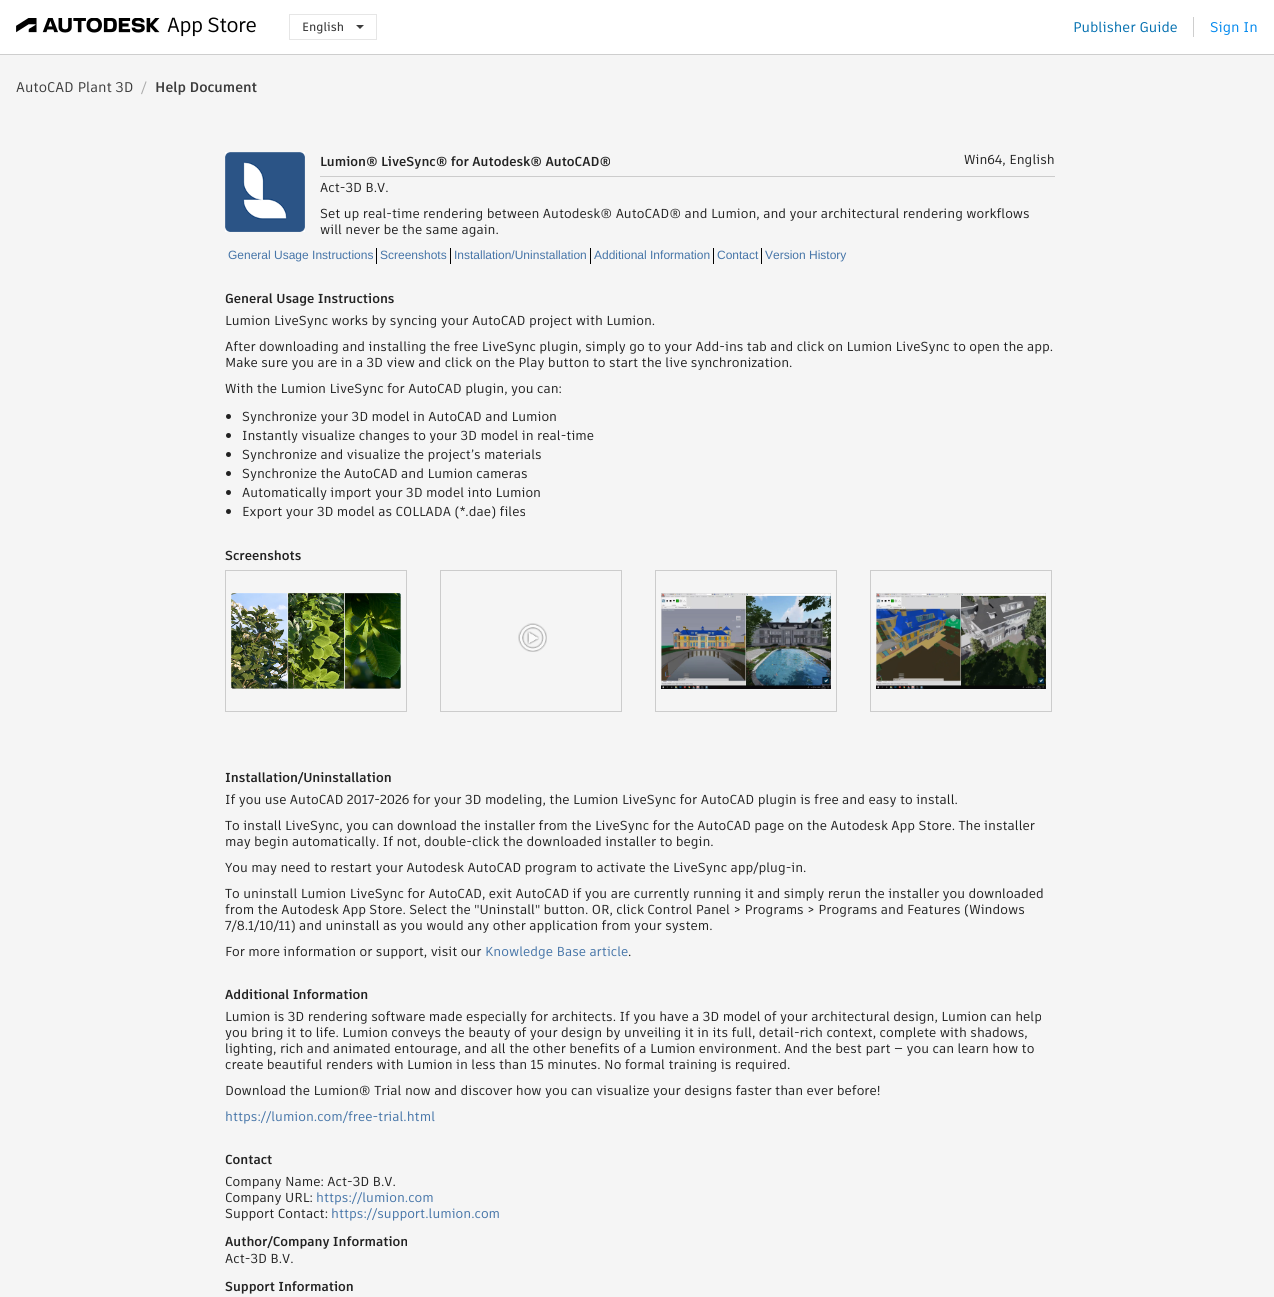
import math
import cairocffi as cairo

surface = cairo.ImageSurface(cairo.FORMAT_RGB24, 1274, 1297)
cr = cairo.Context(surface)
options = cairo.FontOptions()
options.set_hint_metrics(cairo.HINT_METRICS_OFF)
options.set_hint_style(cairo.HINT_STYLE_NONE)
cr.set_font_options(options)
cr.set_miter_limit(4)


def use_color(code):
    cr.set_source_rgb(*(v / 255 for v in bytes.fromhex(code[-6:])))


def picture(path, x, y, w, h):
    cr.save()
    cr.set_source_surface(cairo.ImageSurface.create_from_png(path), x, y)
    cr.rectangle(x, y, w, h)
    cr.fill()
    cr.restore()


use_color("#f5f5f5")
cr.paint()
use_color("#ffffff")
cr.rectangle(0, 0, 1274, 54)
cr.fill()
use_color("#cecece")
cr.rectangle(0, 54, 1274, 1)
cr.fill()
picture("img1.png", 16, 17, 240, 20)
cr.rectangle(289.5, 14.5, 87, 25)
use_color("#e6e6e6")
cr.set_line_width(1)
cr.stroke()
cr.select_font_face("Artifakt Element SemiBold")
cr.set_font_size(12)
use_color("#3c3c3c")
cr.move_to(302, 31)
cr.show_text("English")
cr.new_path()
cr.move_to(356, 25)
cr.line_to(364, 25)
cr.line_to(360, 29)
cr.close_path()
cr.fill()
use_color("#cecece")
cr.rectangle(1193, 17, 1, 20)
cr.fill()
cr.select_font_face("Artifakt Element Medium")
cr.set_font_size(14)
use_color("#006eaf")
cr.move_to(1073, 32)
cr.show_text("Publisher Guide")
use_color("#0088ee")
cr.move_to(1210, 32)
cr.show_text("Sign In")
use_color("#3c3c3c")
cr.move_to(16, 92)
cr.show_text("AutoCAD Plant 3D")
use_color("#ababab")
cr.move_to(141, 92)
cr.show_text("/")
cr.select_font_face("Artifakt Element", cairo.FONT_SLANT_NORMAL, cairo.FONT_WEIGHT_BOLD)
use_color("#3c3c3c")
cr.move_to(155, 92)
cr.show_text("Help Document")
picture("img2.png", 225, 152, 80, 80)
cr.set_font_size(13)
use_color("#222222")
cr.move_to(320, 166)
cr.show_text("Lumion® LiveSync® for Autodesk® AutoCAD®")
cr.select_font_face("Artifakt Element Medium")
cr.move_to(964, 164)
cr.show_text("Win64, English")
use_color("#cccccc")
cr.rectangle(320, 176, 735, 1)
cr.fill()
use_color("#222222")
cr.move_to(320, 192)
cr.show_text("Act-3D B.V.")
cr.move_to(320, 218)
cr.show_text("Set up real-time rendering between Autodesk® AutoCAD® and Lumion, and your architectural rendering workflows")
cr.move_to(320, 234)
cr.show_text("will never be the same again.")
use_color("#000000")
cr.rectangle(376, 248, 1, 16)
cr.fill()
cr.select_font_face("Liberation Sans")
cr.set_font_size(12)
use_color("#4675a8")
cr.move_to(228, 259)
cr.show_text("General Usage Instructions")
use_color("#000000")
cr.rectangle(450, 248, 1, 16)
cr.fill()
use_color("#4675a8")
cr.move_to(380, 259)
cr.show_text("Screenshots")
use_color("#000000")
cr.rectangle(590, 248, 1, 16)
cr.fill()
use_color("#4675a8")
cr.move_to(454, 259)
cr.show_text("Installation/Uninstallation")
use_color("#000000")
cr.rectangle(713, 248, 1, 16)
cr.fill()
use_color("#4675a8")
cr.move_to(594, 259)
cr.show_text("Additional Information")
use_color("#000000")
cr.rectangle(761, 248, 1, 16)
cr.fill()
use_color("#4675a8")
cr.move_to(717, 259)
cr.show_text("Contact")
cr.move_to(765, 259)
cr.show_text("Version History")
cr.select_font_face("Artifakt Element", cairo.FONT_SLANT_NORMAL, cairo.FONT_WEIGHT_BOLD)
cr.set_font_size(13)
use_color("#222222")
cr.move_to(225, 303)
cr.show_text("General Usage Instructions")
cr.select_font_face("Artifakt Element Medium")
cr.move_to(225, 325)
cr.show_text("Lumion LiveSync works by syncing your AutoCAD project with Lumion.")
cr.move_to(225, 351)
cr.show_text("After downloading and installing the free LiveSync plugin, simply go to your Add-ins tab and click on Lumion LiveSync to open the app.")
cr.move_to(225, 367)
cr.show_text("Make sure you are in a 3D view and click on the Play button to start the live synchronization.")
cr.move_to(225, 393)
cr.show_text("With the Lumion LiveSync for AutoCAD plugin, you can:")
cr.new_path()
cr.arc(228.5, 416.5, 2.5, 0, 2 * math.pi)
cr.fill()
cr.move_to(242, 421)
cr.show_text("Synchronize your 3D model in AutoCAD and Lumion")
cr.new_path()
cr.arc(228.5, 435.5, 2.5, 0, 2 * math.pi)
cr.fill()
cr.move_to(242, 440)
cr.show_text("Instantly visualize changes to your 3D model in real-time")
cr.new_path()
cr.arc(228.5, 454.5, 2.5, 0, 2 * math.pi)
cr.fill()
cr.move_to(242, 459)
cr.show_text("Synchronize and visualize the project’s materials")
cr.new_path()
cr.arc(228.5, 473.5, 2.5, 0, 2 * math.pi)
cr.fill()
cr.move_to(242, 478)
cr.show_text("Synchronize the AutoCAD and Lumion cameras")
cr.new_path()
cr.arc(228.5, 492.5, 2.5, 0, 2 * math.pi)
cr.fill()
cr.move_to(242, 497)
cr.show_text("Automatically import your 3D model into Lumion")
cr.new_path()
cr.arc(228.5, 511.5, 2.5, 0, 2 * math.pi)
cr.fill()
cr.move_to(242, 516)
cr.show_text("Export your 3D model as COLLADA (*.dae) files")
cr.select_font_face("Artifakt Element", cairo.FONT_SLANT_NORMAL, cairo.FONT_WEIGHT_BOLD)
cr.move_to(225, 560)
cr.show_text("Screenshots")
cr.rectangle(225.5, 570.5, 181, 141)
use_color("#cccccc")
cr.stroke()
picture("img3.png", 231, 593, 170, 96)
cr.rectangle(440.5, 570.5, 181, 141)
cr.stroke()
picture("img4.png", 518, 623, 29, 29)
cr.rectangle(655.5, 570.5, 181, 141)
cr.stroke()
picture("img5.png", 661, 593, 170, 96)
cr.rectangle(870.5, 570.5, 181, 141)
cr.stroke()
picture("img6.png", 876, 593, 170, 96)
use_color("#222222")
cr.move_to(225, 782)
cr.show_text("Installation/Uninstallation")
cr.select_font_face("Artifakt Element Medium")
cr.move_to(225, 804)
cr.show_text("If you use AutoCAD 2017-2026 for your 3D modeling, the Lumion LiveSync for AutoCAD plugin is free and easy to install.")
cr.move_to(225, 830)
cr.show_text("To install LiveSync, you can download the installer from the LiveSync for the AutoCAD page on the Autodesk App Store. The installer")
cr.move_to(225, 846)
cr.show_text("may begin automatically. If not, double-click the downloaded installer to begin.")
cr.move_to(225, 872)
cr.show_text("You may need to restart your Autodesk AutoCAD program to activate the LiveSync app/plug-in.")
cr.move_to(225, 898)
cr.show_text("To uninstall Lumion LiveSync for AutoCAD, exit AutoCAD if you are currently running it and simply rerun the installer you downloaded")
cr.move_to(225, 914)
cr.show_text("from the Autodesk App Store. Select the \"Uninstall\" button. OR, click Control Panel > Programs > Programs and Features (Windows")
cr.move_to(225, 930)
cr.show_text("7/8.1/10/11) and uninstall as you would any other application from your system.")
cr.move_to(225, 956)
cr.show_text("For more information or support, visit our")
use_color("#4675a8")
cr.move_to(485, 956)
cr.show_text("Knowledge Base article")
use_color("#222222")
cr.move_to(628, 956)
cr.show_text(".")
cr.select_font_face("Artifakt Element", cairo.FONT_SLANT_NORMAL, cairo.FONT_WEIGHT_BOLD)
cr.move_to(225, 999)
cr.show_text("Additional Information")
cr.select_font_face("Artifakt Element Medium")
cr.move_to(225, 1021)
cr.show_text("Lumion is 3D rendering software made especially for architects. If you have a 3D model of your architectural design, Lumion can help")
cr.move_to(225, 1037)
cr.show_text("you bring it to life. Lumion conveys the beauty of your design by unveiling it in its full, detail-rich context, complete with shadows,")
cr.move_to(225, 1053)
cr.show_text("lighting, rich and animated entourage, and all the other benefits of a Lumion environment. And the best part — you can learn how to")
cr.move_to(225, 1069)
cr.show_text("create beautiful renders with Lumion in less than 15 minutes. No formal training is required.")
cr.move_to(225, 1095)
cr.show_text("Download the Lumion® Trial now and discover how you can visualize your designs faster than ever before!")
use_color("#4675a8")
cr.move_to(225, 1121)
cr.show_text("https://lumion.com/free-trial.html")
cr.select_font_face("Artifakt Element", cairo.FONT_SLANT_NORMAL, cairo.FONT_WEIGHT_BOLD)
use_color("#222222")
cr.move_to(225, 1164)
cr.show_text("Contact")
cr.select_font_face("Artifakt Element Medium")
cr.move_to(225, 1186)
cr.show_text("Company Name: Act-3D B.V.")
cr.move_to(225, 1202)
cr.show_text("Company URL:")
use_color("#4675a8")
cr.move_to(316, 1202)
cr.show_text("https://lumion.com")
use_color("#222222")
cr.move_to(225, 1218)
cr.show_text("Support Contact:")
use_color("#4675a8")
cr.move_to(331, 1218)
cr.show_text("https://support.lumion.com")
cr.select_font_face("Artifakt Element", cairo.FONT_SLANT_NORMAL, cairo.FONT_WEIGHT_BOLD)
use_color("#222222")
cr.move_to(225, 1246)
cr.show_text("Author/Company Information")
cr.select_font_face("Artifakt Element Medium")
cr.move_to(225, 1263)
cr.show_text("Act-3D B.V.")
cr.select_font_face("Artifakt Element", cairo.FONT_SLANT_NORMAL, cairo.FONT_WEIGHT_BOLD)
cr.move_to(225, 1291)
cr.show_text("Support Information")
surface.write_to_png("result.png")
